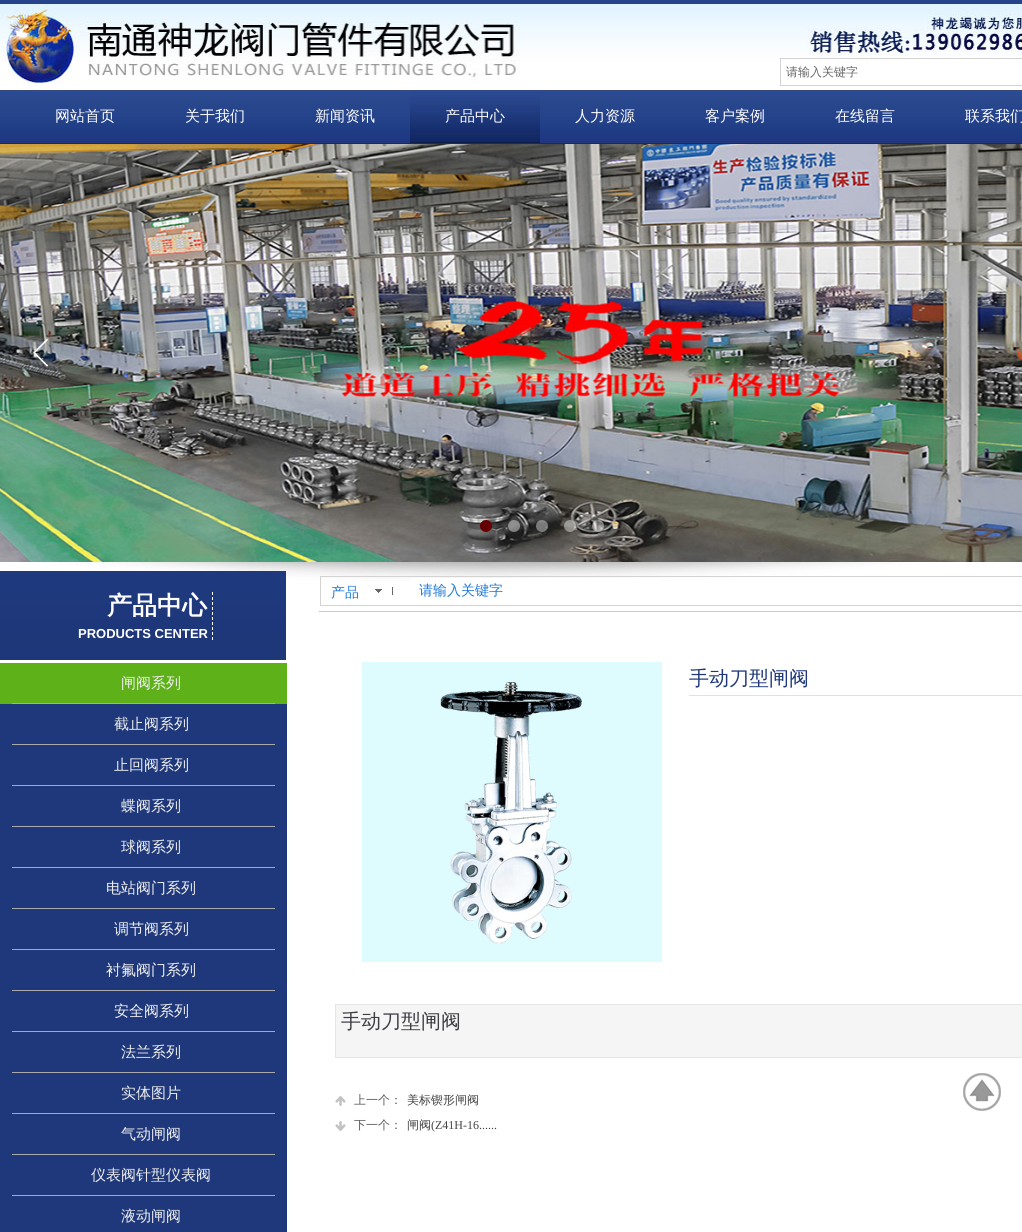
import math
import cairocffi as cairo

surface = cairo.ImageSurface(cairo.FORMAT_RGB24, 1022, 1232)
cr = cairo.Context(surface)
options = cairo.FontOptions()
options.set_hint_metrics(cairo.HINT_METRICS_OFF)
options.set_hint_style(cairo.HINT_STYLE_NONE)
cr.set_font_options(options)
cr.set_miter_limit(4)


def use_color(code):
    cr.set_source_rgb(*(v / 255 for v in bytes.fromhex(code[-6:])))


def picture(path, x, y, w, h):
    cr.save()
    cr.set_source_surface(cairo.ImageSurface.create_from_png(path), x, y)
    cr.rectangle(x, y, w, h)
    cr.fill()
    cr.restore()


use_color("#ffffff")
cr.paint()
picture("img3.png", 0, 4, 1022, 80)
picture("img1.png", 780, 57, 242, 1)
use_color("#ffffff")
cr.rectangle(817, 59, 87, 1)
cr.fill()
picture("img2.png", 0, 84, 1022, 60)
cr.rectangle(780.5, 58.5, 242, 27)
use_color("#d3d3d3")
cr.set_line_width(1)
cr.stroke()
cr.select_font_face("WenQuanYi Zen Hei Medium")
cr.set_font_size(12)
use_color("#666666")
cr.move_to(786, 76)
cr.show_text("请输入关键字")
use_color("#25438b")
cr.rectangle(0, 0, 1022, 4)
cr.fill()
cr.set_font_size(15)
use_color("#ffffff")
cr.move_to(55, 121)
cr.show_text("网站首页")
cr.move_to(185, 121)
cr.show_text("关于我们")
cr.move_to(315, 121)
cr.show_text("新闻资讯")
picture("img4.png", 410, 90, 130, 53)
cr.move_to(445, 121)
cr.show_text("产品中心")
cr.move_to(575, 121)
cr.show_text("人力资源")
cr.move_to(705, 121)
cr.show_text("客户案例")
cr.move_to(835, 121)
cr.show_text("在线留言")
cr.move_to(965, 121)
cr.show_text("联系我们")
picture("img5.png", 0, 144, 1022, 418)
picture("img6.png", 32, 338, 17, 29)
use_color("#660000")
cr.arc(486, 526, 6, 0, 2 * math.pi)
cr.fill()
cr.set_source_rgba(1, 1, 1, 0.4)
cr.arc(514, 526, 6, 0, 2 * math.pi)
cr.fill()
cr.arc(542, 526, 6, 0, 2 * math.pi)
cr.fill()
cr.arc(570, 526, 6, 0, 2 * math.pi)
cr.fill()
cr.arc(598, 526, 6, 0, 2 * math.pi)
cr.fill()
picture("img7.png", 67, 562, 845, 19)
picture("img8.png", 0, 571, 286, 89)
cr.rectangle(320.5, 576.5, 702, 29)
use_color("#d3d3d3")
cr.stroke()
picture("img9.png", 375, 587, 18, 8)
cr.set_font_size(14)
use_color("#1d7ad9")
cr.move_to(331, 597)
cr.show_text("产品")
use_color("#ffffff")
cr.rectangle(411, 578, 249, 3)
cr.fill()
use_color("#1d7ad9")
cr.move_to(419, 595)
cr.show_text("请输入关键字")
cr.select_font_face("WenQuanYi Zen Hei", cairo.FONT_SLANT_NORMAL, cairo.FONT_WEIGHT_BOLD)
cr.set_font_size(25)
use_color("#ffffff")
cr.move_to(107, 614)
cr.show_text("产品中心")
cr.new_path()
cr.move_to(212.5, 592)
cr.line_to(212.5, 640)
cr.set_dash([3, 2])
cr.stroke()
use_color("#cccccc")
cr.rectangle(319, 611, 703, 1)
cr.fill()
cr.select_font_face("Liberation Sans", cairo.FONT_SLANT_NORMAL, cairo.FONT_WEIGHT_BOLD)
cr.set_font_size(13)
use_color("#ffffff")
cr.move_to(78, 638)
cr.show_text("PRODUCTS CENTER")
use_color("#5eb119")
cr.rectangle(0, 663, 287, 41)
cr.fill()
use_color("#aaaaaa")
cr.rectangle(12, 703, 263, 1)
cr.fill()
cr.select_font_face("WenQuanYi Zen Hei Medium")
cr.set_font_size(15)
use_color("#eeeeee")
cr.move_to(121, 688)
cr.show_text("闸阀系列")
use_color("#1e387b")
cr.rectangle(0, 704, 287, 528)
cr.fill()
use_color("#aaaaaa")
cr.rectangle(12, 744, 263, 1)
cr.fill()
use_color("#eeeeee")
cr.move_to(114, 729)
cr.show_text("截止阀系列")
use_color("#aaaaaa")
cr.rectangle(12, 785, 263, 1)
cr.fill()
use_color("#eeeeee")
cr.move_to(114, 770)
cr.show_text("止回阀系列")
use_color("#aaaaaa")
cr.rectangle(12, 826, 263, 1)
cr.fill()
use_color("#eeeeee")
cr.move_to(121, 811)
cr.show_text("蝶阀系列")
use_color("#aaaaaa")
cr.rectangle(12, 867, 263, 1)
cr.fill()
use_color("#eeeeee")
cr.move_to(121, 852)
cr.show_text("球阀系列")
use_color("#aaaaaa")
cr.rectangle(12, 908, 263, 1)
cr.fill()
use_color("#eeeeee")
cr.move_to(106, 893)
cr.show_text("电站阀门系列")
use_color("#aaaaaa")
cr.rectangle(12, 949, 263, 1)
cr.fill()
use_color("#eeeeee")
cr.move_to(114, 934)
cr.show_text("调节阀系列")
use_color("#aaaaaa")
cr.rectangle(12, 990, 263, 1)
cr.fill()
use_color("#eeeeee")
cr.move_to(106, 975)
cr.show_text("衬氟阀门系列")
use_color("#aaaaaa")
cr.rectangle(12, 1031, 263, 1)
cr.fill()
use_color("#eeeeee")
cr.move_to(114, 1016)
cr.show_text("安全阀系列")
use_color("#aaaaaa")
cr.rectangle(12, 1072, 263, 1)
cr.fill()
use_color("#eeeeee")
cr.move_to(121, 1057)
cr.show_text("法兰系列")
use_color("#aaaaaa")
cr.rectangle(12, 1113, 263, 1)
cr.fill()
use_color("#eeeeee")
cr.move_to(121, 1098)
cr.show_text("实体图片")
use_color("#aaaaaa")
cr.rectangle(12, 1154, 263, 1)
cr.fill()
use_color("#eeeeee")
cr.move_to(121, 1139)
cr.show_text("气动闸阀")
use_color("#aaaaaa")
cr.rectangle(12, 1195, 263, 1)
cr.fill()
use_color("#eeeeee")
cr.move_to(91, 1180)
cr.show_text("仪表阀针型仪表阀")
cr.move_to(121, 1221)
cr.show_text("液动闸阀")
picture("img10.png", 362, 662, 300, 300)
use_color("#e2e2e2")
cr.rectangle(689, 695, 333, 1)
cr.fill()
cr.set_font_size(20)
use_color("#1e387b")
cr.move_to(689, 685)
cr.show_text("手动刀型闸阀")
use_color("#f5f5f5")
cr.rectangle(335.5, 1004.5, 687, 53)
cr.fill_preserve()
use_color("#e5e5e5")
cr.set_dash([])
cr.stroke()
use_color("#3e3e45")
cr.move_to(341, 1028)
cr.show_text("手动刀型闸阀")
use_color("#c2c2c2")
cr.rectangle(335, 1096, 11, 10)
cr.fill()
picture("img11.png", 335, 1096, 11, 10)
cr.set_font_size(12)
use_color("#595959")
cr.move_to(354, 1104)
cr.show_text("上一个：")
use_color("#444444")
cr.move_to(407, 1104)
cr.show_text("美标锲形闸阀")
use_color("#c2c2c2")
cr.rectangle(335, 1121, 11, 10)
cr.fill()
picture("img12.png", 335, 1121, 11, 10)
use_color("#595959")
cr.move_to(354, 1129)
cr.show_text("下一个：")
use_color("#444444")
cr.move_to(407, 1129)
cr.show_text("闸阀")
cr.select_font_face("Liberation Serif")
cr.move_to(431, 1129)
cr.show_text("(Z41H-16......")
picture("img13.png", 963, 1073, 38, 38)
surface.write_to_png("result.png")
